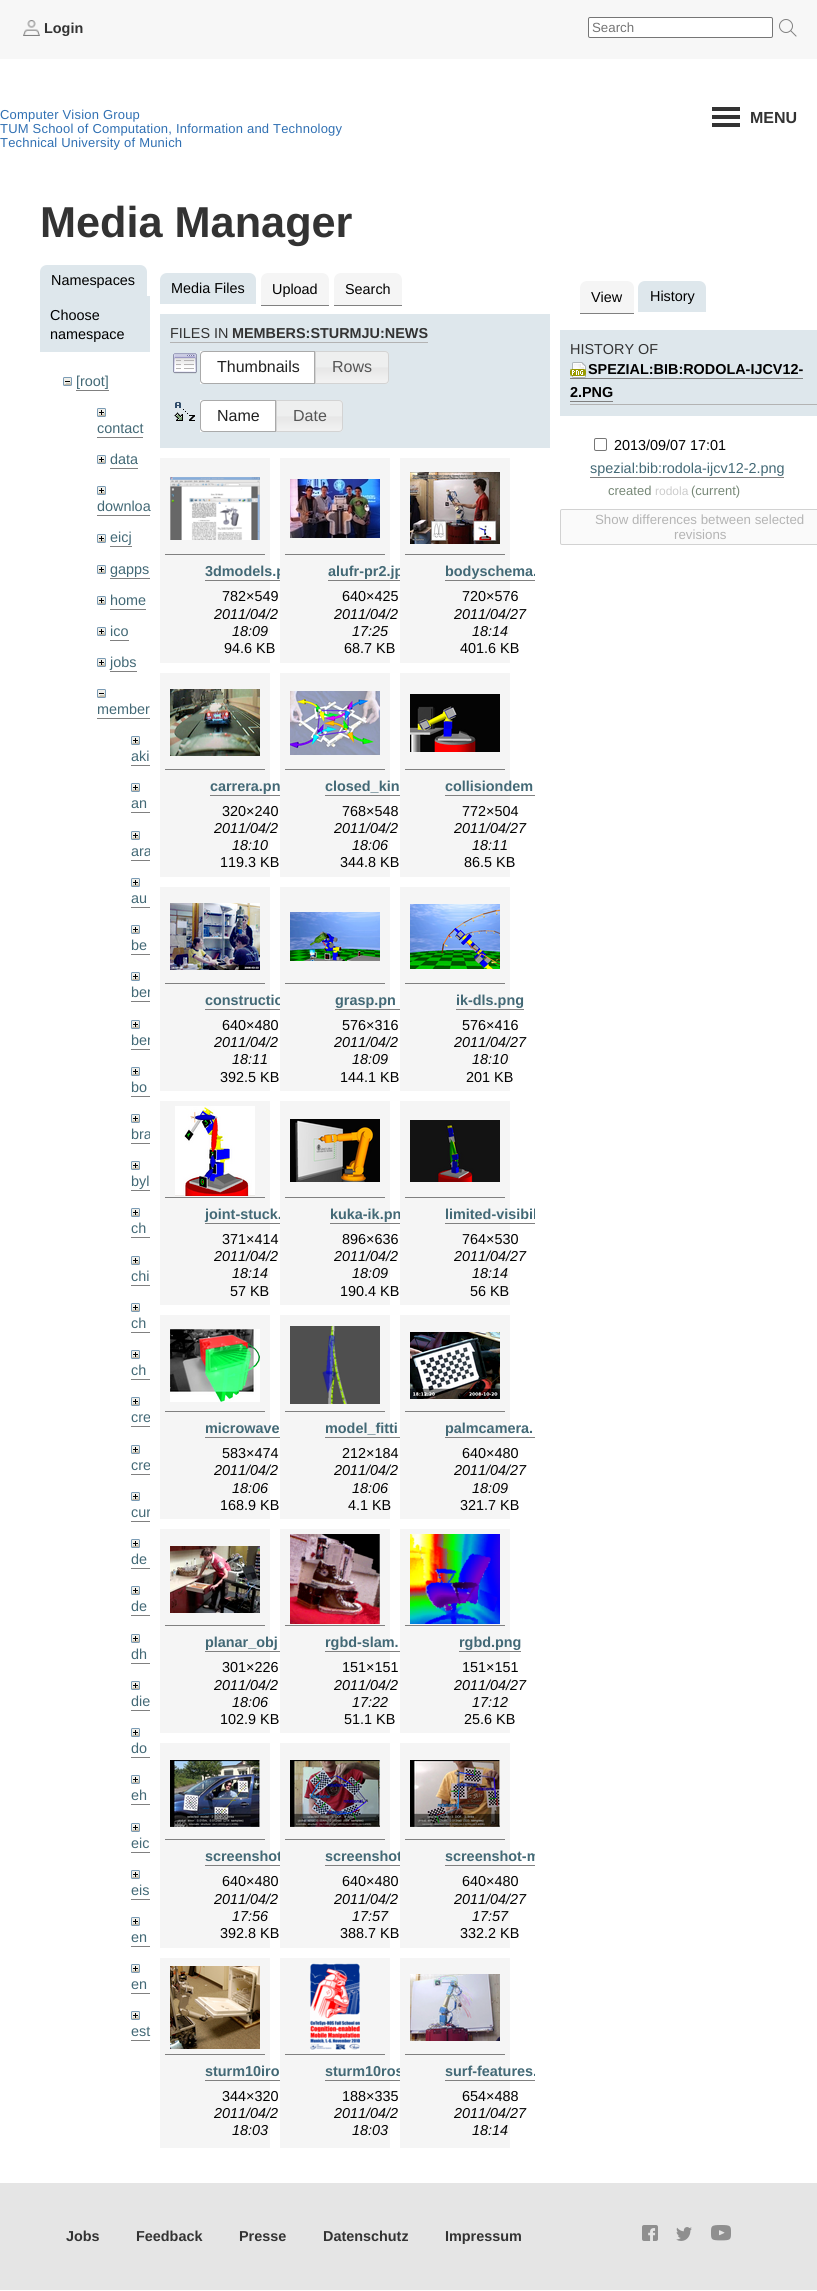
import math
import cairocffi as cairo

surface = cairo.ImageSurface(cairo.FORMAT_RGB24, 817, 2291)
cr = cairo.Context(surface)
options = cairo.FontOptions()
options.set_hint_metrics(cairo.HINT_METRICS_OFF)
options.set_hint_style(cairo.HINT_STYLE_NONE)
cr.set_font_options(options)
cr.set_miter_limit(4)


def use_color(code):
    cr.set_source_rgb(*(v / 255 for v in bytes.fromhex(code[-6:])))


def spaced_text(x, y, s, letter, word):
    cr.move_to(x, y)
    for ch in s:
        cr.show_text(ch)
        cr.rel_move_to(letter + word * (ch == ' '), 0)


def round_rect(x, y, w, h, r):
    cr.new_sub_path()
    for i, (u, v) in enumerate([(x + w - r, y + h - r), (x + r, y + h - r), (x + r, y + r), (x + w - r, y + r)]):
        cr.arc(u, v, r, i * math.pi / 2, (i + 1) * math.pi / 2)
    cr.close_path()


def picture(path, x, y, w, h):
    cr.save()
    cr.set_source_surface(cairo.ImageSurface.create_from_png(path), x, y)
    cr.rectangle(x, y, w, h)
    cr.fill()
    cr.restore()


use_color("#ffffff")
cr.paint()
use_color("#f7f7f7")
cr.rectangle(0, 0, 817, 59)
cr.fill()
picture("img1.png", 23, 20, 17, 16)
cr.select_font_face("Liberation Sans", cairo.FONT_SLANT_NORMAL, cairo.FONT_WEIGHT_BOLD)
cr.set_font_size(14.4)
use_color("#333333")
cr.move_to(44, 33)
cr.show_text("Login")
use_color("#ffffff")
round_rect(588.5, 17.5, 184, 20, 1.5)
cr.fill_preserve()
use_color("#767676")
cr.set_line_width(1)
cr.stroke()
cr.select_font_face("Liberation Sans")
cr.set_font_size(13.3)
use_color("#757575")
cr.move_to(592, 32)
cr.show_text("Search")
picture("img2.png", 779, 19, 18, 18)
cr.set_font_size(13)
use_color("#3070b3")
spaced_text(0, 119, "Computer Vision Group", 0.2, 0)
spaced_text(0, 133, "TUM School of Computation, Information and Technology", 0.2, 0)
spaced_text(0, 147, "Technical University of Munich", 0.2, 0)
use_color("#333333")
cr.rectangle(712, 107, 28, 4)
cr.fill()
cr.rectangle(712, 115, 28, 4)
cr.fill()
cr.rectangle(712, 123, 28, 4)
cr.fill()
cr.select_font_face("Liberation Sans", cairo.FONT_SLANT_NORMAL, cairo.FONT_WEIGHT_BOLD)
cr.set_font_size(16)
cr.move_to(750, 123)
cr.show_text("MENU")
cr.set_font_size(43.25)
cr.move_to(40, 237)
cr.show_text("Media Manager")
use_color("#dee7ec")
cr.new_path()
cr.move_to(47, 265)
cr.line_to(140, 265)
cr.curve_to(144, 265, 147, 268, 147, 272)
cr.line_to(147, 296)
cr.line_to(40, 296)
cr.line_to(40, 272)
cr.curve_to(40, 268, 43, 265, 47, 265)
cr.close_path()
cr.fill()
cr.select_font_face("Liberation Sans")
cr.set_font_size(14.4)
use_color("#000000")
cr.move_to(51, 285)
cr.show_text("Namespaces")
use_color("#dee7ec")
cr.rectangle(40, 296, 110, 56)
cr.fill()
use_color("#000000")
cr.move_to(50, 320)
cr.show_text("Choose")
cr.move_to(50, 339)
cr.show_text("namespace")
picture("img3.png", 63, 377, 9, 9)
use_color("#436976")
cr.move_to(76, 386)
cr.show_text("[root]")
use_color("#808080")
cr.rectangle(76, 390, 33, 1)
cr.fill()
picture("img4.png", 97, 408, 9, 9)
use_color("#436976")
cr.move_to(97, 433)
cr.show_text("contact")
use_color("#808080")
cr.rectangle(97, 437, 46, 1)
cr.fill()
picture("img4.png", 97, 455, 9, 9)
use_color("#436976")
cr.move_to(110, 464)
cr.show_text("data")
use_color("#808080")
cr.rectangle(110, 468, 28, 1)
cr.fill()
picture("img4.png", 97, 486, 9, 9)
use_color("#436976")
cr.move_to(97, 511)
cr.show_text("downloa")
use_color("#808080")
cr.rectangle(97, 515, 53, 1)
cr.fill()
picture("img4.png", 97, 534, 9, 9)
use_color("#436976")
cr.move_to(110, 542)
cr.show_text("eicj")
use_color("#808080")
cr.rectangle(110, 546, 22, 1)
cr.fill()
picture("img4.png", 97, 565, 9, 9)
use_color("#436976")
cr.move_to(110, 574)
cr.show_text("gapps")
use_color("#808080")
cr.rectangle(110, 578, 40, 1)
cr.fill()
picture("img4.png", 97, 596, 9, 9)
use_color("#436976")
cr.move_to(110, 605)
cr.show_text("home")
use_color("#808080")
cr.rectangle(110, 609, 36, 1)
cr.fill()
picture("img4.png", 97, 627, 9, 9)
use_color("#436976")
cr.move_to(110, 636)
cr.show_text("ico")
use_color("#808080")
cr.rectangle(110, 640, 19, 1)
cr.fill()
picture("img4.png", 97, 658, 9, 9)
use_color("#436976")
cr.move_to(110, 667)
cr.show_text("jobs")
use_color("#808080")
cr.rectangle(110, 671, 27, 1)
cr.fill()
picture("img3.png", 97, 689, 9, 9)
use_color("#436976")
cr.move_to(97, 714)
cr.show_text("member")
use_color("#808080")
cr.rectangle(97, 718, 53, 1)
cr.fill()
picture("img4.png", 131, 736, 9, 9)
use_color("#436976")
cr.move_to(131, 761)
cr.show_text("aki")
use_color("#808080")
cr.rectangle(131, 765, 19, 1)
cr.fill()
picture("img4.png", 131, 783, 9, 9)
use_color("#436976")
cr.move_to(131, 808)
cr.show_text("an")
use_color("#808080")
cr.rectangle(131, 812, 19, 1)
cr.fill()
picture("img4.png", 131, 831, 9, 9)
cr.save()
cr.rectangle(40, 362, 110, 1690)
cr.clip()
use_color("#436976")
cr.move_to(131, 856)
cr.show_text("ara")
cr.restore()
cr.rectangle(131, 860, 19, 1)
cr.fill()
picture("img4.png", 131, 878, 9, 9)
use_color("#436976")
cr.move_to(131, 903)
cr.show_text("au")
use_color("#808080")
cr.rectangle(131, 907, 19, 1)
cr.fill()
picture("img4.png", 131, 925, 9, 9)
use_color("#436976")
cr.move_to(131, 950)
cr.show_text("be")
use_color("#808080")
cr.rectangle(131, 954, 19, 1)
cr.fill()
picture("img4.png", 131, 972, 9, 9)
cr.save()
cr.rectangle(40, 362, 110, 1690)
cr.clip()
use_color("#436976")
cr.move_to(131, 997)
cr.show_text("ber")
cr.restore()
cr.rectangle(131, 1001, 19, 1)
cr.fill()
picture("img4.png", 131, 1020, 9, 9)
cr.save()
cr.rectangle(40, 362, 110, 1690)
cr.clip()
use_color("#436976")
cr.move_to(131, 1045)
cr.show_text("ber")
cr.restore()
cr.rectangle(131, 1049, 19, 1)
cr.fill()
picture("img4.png", 131, 1067, 9, 9)
use_color("#436976")
cr.move_to(131, 1092)
cr.show_text("bo")
use_color("#808080")
cr.rectangle(131, 1096, 19, 1)
cr.fill()
picture("img4.png", 131, 1114, 9, 9)
cr.save()
cr.rectangle(40, 362, 110, 1690)
cr.clip()
use_color("#436976")
cr.move_to(131, 1139)
cr.show_text("bra")
cr.restore()
cr.rectangle(131, 1143, 19, 1)
cr.fill()
picture("img4.png", 131, 1161, 9, 9)
use_color("#436976")
cr.move_to(131, 1186)
cr.show_text("byl")
use_color("#808080")
cr.rectangle(131, 1190, 19, 1)
cr.fill()
picture("img4.png", 131, 1208, 9, 9)
use_color("#436976")
cr.move_to(131, 1233)
cr.show_text("ch")
use_color("#808080")
cr.rectangle(131, 1237, 19, 1)
cr.fill()
picture("img4.png", 131, 1256, 9, 9)
use_color("#436976")
cr.move_to(131, 1281)
cr.show_text("chi")
use_color("#808080")
cr.rectangle(131, 1285, 19, 1)
cr.fill()
picture("img4.png", 131, 1303, 9, 9)
use_color("#436976")
cr.move_to(131, 1328)
cr.show_text("ch")
use_color("#808080")
cr.rectangle(131, 1332, 19, 1)
cr.fill()
picture("img4.png", 131, 1350, 9, 9)
use_color("#436976")
cr.move_to(131, 1375)
cr.show_text("ch")
use_color("#808080")
cr.rectangle(131, 1379, 19, 1)
cr.fill()
picture("img4.png", 131, 1397, 9, 9)
cr.save()
cr.rectangle(40, 362, 110, 1690)
cr.clip()
use_color("#436976")
cr.move_to(131, 1422)
cr.show_text("cre")
cr.restore()
cr.rectangle(131, 1426, 19, 1)
cr.fill()
picture("img4.png", 131, 1445, 9, 9)
cr.save()
cr.rectangle(40, 362, 110, 1690)
cr.clip()
use_color("#436976")
cr.move_to(131, 1470)
cr.show_text("cre")
cr.restore()
cr.rectangle(131, 1474, 19, 1)
cr.fill()
picture("img4.png", 131, 1492, 9, 9)
cr.save()
cr.rectangle(40, 362, 110, 1690)
cr.clip()
use_color("#436976")
cr.move_to(131, 1517)
cr.show_text("cur")
cr.restore()
cr.rectangle(131, 1521, 19, 1)
cr.fill()
picture("img4.png", 131, 1539, 9, 9)
use_color("#436976")
cr.move_to(131, 1564)
cr.show_text("de")
use_color("#808080")
cr.rectangle(131, 1568, 19, 1)
cr.fill()
picture("img4.png", 131, 1586, 9, 9)
use_color("#436976")
cr.move_to(131, 1611)
cr.show_text("de")
use_color("#808080")
cr.rectangle(131, 1615, 19, 1)
cr.fill()
picture("img4.png", 131, 1634, 9, 9)
use_color("#436976")
cr.move_to(131, 1659)
cr.show_text("dh")
use_color("#808080")
cr.rectangle(131, 1663, 19, 1)
cr.fill()
picture("img4.png", 131, 1681, 9, 9)
use_color("#436976")
cr.move_to(131, 1706)
cr.show_text("die")
use_color("#808080")
cr.rectangle(131, 1710, 19, 1)
cr.fill()
picture("img4.png", 131, 1728, 9, 9)
use_color("#436976")
cr.move_to(131, 1753)
cr.show_text("do")
use_color("#808080")
cr.rectangle(131, 1757, 19, 1)
cr.fill()
picture("img4.png", 131, 1775, 9, 9)
use_color("#436976")
cr.move_to(131, 1800)
cr.show_text("eh")
use_color("#808080")
cr.rectangle(131, 1804, 19, 1)
cr.fill()
picture("img4.png", 131, 1823, 9, 9)
use_color("#436976")
cr.move_to(131, 1848)
cr.show_text("eic")
use_color("#808080")
cr.rectangle(131, 1852, 19, 1)
cr.fill()
picture("img4.png", 131, 1870, 9, 9)
use_color("#436976")
cr.move_to(131, 1895)
cr.show_text("eis")
use_color("#808080")
cr.rectangle(131, 1899, 19, 1)
cr.fill()
picture("img4.png", 131, 1917, 9, 9)
use_color("#436976")
cr.move_to(131, 1942)
cr.show_text("en")
use_color("#808080")
cr.rectangle(131, 1946, 19, 1)
cr.fill()
picture("img4.png", 131, 1964, 9, 9)
use_color("#436976")
cr.move_to(131, 1989)
cr.show_text("en")
use_color("#808080")
cr.rectangle(131, 1993, 19, 1)
cr.fill()
picture("img4.png", 131, 2011, 9, 9)
cr.save()
cr.rectangle(40, 362, 110, 1690)
cr.clip()
use_color("#436976")
cr.move_to(131, 2036)
cr.show_text("est")
cr.restore()
cr.rectangle(131, 2040, 19, 1)
cr.fill()
use_color("#dee7ec")
cr.new_path()
cr.move_to(167, 273)
cr.line_to(249, 273)
cr.curve_to(253, 273, 256, 276, 256, 280)
cr.line_to(256, 304)
cr.line_to(160, 304)
cr.line_to(160, 280)
cr.curve_to(160, 276, 163, 273, 167, 273)
cr.close_path()
cr.fill()
use_color("#000000")
cr.move_to(171, 293)
cr.show_text("Media Files")
use_color("#f5f5f5")
cr.new_path()
cr.move_to(268, 273)
cr.line_to(322, 273)
cr.curve_to(326, 273, 329, 276, 329, 280)
cr.line_to(329, 306)
cr.line_to(261, 306)
cr.line_to(261, 280)
cr.curve_to(261, 276, 264, 273, 268, 273)
cr.close_path()
cr.fill()
use_color("#808080")
cr.rectangle(261, 305, 68, 1)
cr.fill()
use_color("#000000")
cr.move_to(272, 294)
cr.show_text("Upload")
use_color("#f5f5f5")
cr.new_path()
cr.move_to(341, 273)
cr.line_to(395, 273)
cr.curve_to(399, 273, 402, 276, 402, 280)
cr.line_to(402, 306)
cr.line_to(334, 306)
cr.line_to(334, 280)
cr.curve_to(334, 276, 337, 273, 341, 273)
cr.close_path()
cr.fill()
use_color("#808080")
cr.rectangle(334, 305, 68, 1)
cr.fill()
use_color("#000000")
cr.move_to(345, 294)
cr.show_text("Search")
use_color("#dee7ec")
cr.rectangle(160, 314, 390, 134)
cr.fill()
use_color("#b3b3b3")
cr.rectangle(170, 342, 258, 1)
cr.fill()
use_color("#333333")
cr.move_to(170, 338)
cr.show_text("FILES IN")
cr.select_font_face("Liberation Sans", cairo.FONT_SLANT_NORMAL, cairo.FONT_WEIGHT_BOLD)
cr.move_to(232, 338)
cr.show_text("MEMBERS:STURMJU:NEWS")
picture("img5.png", 173, 353, 24, 21)
use_color("#ffffff")
cr.rectangle(200, 351, 114, 33)
cr.fill()
cr.new_path()
cr.move_to(204, 351.5)
cr.line_to(314.5, 351.5)
cr.line_to(314.5, 383.5)
cr.line_to(204, 383.5)
cr.curve_to(202, 383.5, 200.5, 382, 200.5, 380)
cr.line_to(200.5, 355)
cr.curve_to(200.5, 353, 202, 351.5, 204, 351.5)
cr.close_path()
use_color("#aaaaaa")
cr.stroke()
cr.select_font_face("Liberation Sans")
cr.set_font_size(16)
use_color("#212121")
cr.move_to(217, 372)
cr.show_text("Thumbnails")
picture("img6.png", 316, 351, 73, 33)
cr.new_path()
cr.move_to(315.5, 351.5)
cr.line_to(385, 351.5)
cr.curve_to(387, 351.5, 388.5, 353, 388.5, 355)
cr.line_to(388.5, 380)
cr.curve_to(388.5, 382, 387, 383.5, 385, 383.5)
cr.line_to(315.5, 383.5)
cr.close_path()
use_color("#d3d3d3")
cr.stroke()
use_color("#555555")
cr.move_to(332, 372)
cr.show_text("Rows")
picture("img7.png", 174, 402, 21, 19)
use_color("#ffffff")
cr.rectangle(200, 400, 75, 32)
cr.fill()
cr.new_path()
cr.move_to(204, 400.5)
cr.line_to(275.5, 400.5)
cr.line_to(275.5, 431.5)
cr.line_to(204, 431.5)
cr.curve_to(202, 431.5, 200.5, 430, 200.5, 428)
cr.line_to(200.5, 404)
cr.curve_to(200.5, 402, 202, 400.5, 204, 400.5)
cr.close_path()
use_color("#aaaaaa")
cr.stroke()
use_color("#212121")
cr.move_to(217, 421)
cr.show_text("Name")
picture("img8.png", 277, 400, 66, 32)
cr.new_path()
cr.move_to(276.5, 400.5)
cr.line_to(339, 400.5)
cr.curve_to(341, 400.5, 342.5, 402, 342.5, 404)
cr.line_to(342.5, 428)
cr.curve_to(342.5, 430, 341, 431.5, 339, 431.5)
cr.line_to(276.5, 431.5)
cr.close_path()
use_color("#d3d3d3")
cr.stroke()
use_color("#555555")
cr.move_to(293, 421)
cr.show_text("Date")
use_color("#f5f5f5")
cr.rectangle(160, 458, 110, 205)
cr.fill()
use_color("#808080")
cr.rectangle(165, 554, 100, 1)
cr.fill()
picture("img9.png", 170, 477, 90, 63)
cr.select_font_face("Liberation Sans", cairo.FONT_SLANT_NORMAL, cairo.FONT_WEIGHT_BOLD)
cr.set_font_size(14.4)
use_color("#436976")
cr.move_to(205, 576)
cr.show_text("3dmodels.p")
use_color("#808080")
cr.rectangle(205, 580, 75, 1)
cr.fill()
cr.select_font_face("Liberation Sans")
use_color("#000000")
cr.move_to(222, 601)
cr.show_text("782×549")
cr.select_font_face("Liberation Sans", cairo.FONT_SLANT_ITALIC)
cr.move_to(214, 619)
cr.show_text("2011/04/2")
cr.move_to(232, 636)
cr.show_text("18:09")
cr.select_font_face("Liberation Sans")
cr.move_to(224, 653)
cr.show_text("94.6 KB")
use_color("#f5f5f5")
cr.rectangle(280, 458, 110, 205)
cr.fill()
use_color("#808080")
cr.rectangle(285, 554, 100, 1)
cr.fill()
picture("img10.png", 290, 479, 90, 59)
cr.select_font_face("Liberation Sans", cairo.FONT_SLANT_NORMAL, cairo.FONT_WEIGHT_BOLD)
use_color("#436976")
cr.move_to(328, 576)
cr.show_text("alufr-pr2.jp")
use_color("#808080")
cr.rectangle(328, 580, 72, 1)
cr.fill()
cr.select_font_face("Liberation Sans")
use_color("#000000")
cr.move_to(342, 601)
cr.show_text("640×425")
cr.select_font_face("Liberation Sans", cairo.FONT_SLANT_ITALIC)
cr.move_to(334, 619)
cr.show_text("2011/04/2")
cr.move_to(352, 636)
cr.show_text("17:25")
cr.select_font_face("Liberation Sans")
cr.move_to(344, 653)
cr.show_text("68.7 KB")
use_color("#f5f5f5")
cr.rectangle(400, 458, 110, 205)
cr.fill()
use_color("#808080")
cr.rectangle(405, 554, 100, 1)
cr.fill()
picture("img11.png", 410, 472, 90, 72)
cr.save()
cr.rectangle(445, 555, 90, 33)
cr.clip()
cr.select_font_face("Liberation Sans", cairo.FONT_SLANT_NORMAL, cairo.FONT_WEIGHT_BOLD)
use_color("#436976")
cr.move_to(445, 576)
cr.show_text("bodyschema.")
cr.restore()
cr.rectangle(445, 580, 90, 1)
cr.fill()
use_color("#000000")
cr.move_to(462, 601)
cr.show_text("720×576")
cr.select_font_face("Liberation Sans", cairo.FONT_SLANT_ITALIC)
cr.move_to(454, 619)
cr.show_text("2011/04/27")
cr.move_to(472, 636)
cr.show_text("18:14")
cr.select_font_face("Liberation Sans")
cr.move_to(460, 653)
cr.show_text("401.6 KB")
use_color("#f5f5f5")
cr.rectangle(160, 673, 110, 204)
cr.fill()
use_color("#808080")
cr.rectangle(165, 769, 100, 1)
cr.fill()
picture("img12.png", 170, 689, 90, 67)
cr.select_font_face("Liberation Sans", cairo.FONT_SLANT_NORMAL, cairo.FONT_WEIGHT_BOLD)
use_color("#436976")
cr.move_to(210, 791)
cr.show_text("carrera.pn")
use_color("#808080")
cr.rectangle(210, 795, 70, 1)
cr.fill()
cr.select_font_face("Liberation Sans")
use_color("#000000")
cr.move_to(222, 816)
cr.show_text("320×240")
cr.select_font_face("Liberation Sans", cairo.FONT_SLANT_ITALIC)
cr.move_to(214, 833)
cr.show_text("2011/04/2")
cr.move_to(232, 850)
cr.show_text("18:10")
cr.select_font_face("Liberation Sans")
cr.move_to(220, 867)
cr.show_text("119.3 KB")
use_color("#f5f5f5")
cr.rectangle(280, 673, 110, 204)
cr.fill()
use_color("#808080")
cr.rectangle(285, 769, 100, 1)
cr.fill()
picture("img13.png", 290, 691, 90, 64)
cr.select_font_face("Liberation Sans", cairo.FONT_SLANT_NORMAL, cairo.FONT_WEIGHT_BOLD)
use_color("#436976")
cr.move_to(325, 791)
cr.show_text("closed_kin")
use_color("#808080")
cr.rectangle(325, 795, 75, 1)
cr.fill()
cr.select_font_face("Liberation Sans")
use_color("#000000")
cr.move_to(342, 816)
cr.show_text("768×548")
cr.select_font_face("Liberation Sans", cairo.FONT_SLANT_ITALIC)
cr.move_to(334, 833)
cr.show_text("2011/04/2")
cr.move_to(352, 850)
cr.show_text("18:06")
cr.select_font_face("Liberation Sans")
cr.move_to(340, 867)
cr.show_text("344.8 KB")
use_color("#f5f5f5")
cr.rectangle(400, 673, 110, 204)
cr.fill()
use_color("#808080")
cr.rectangle(405, 769, 100, 1)
cr.fill()
picture("img14.png", 410, 694, 90, 58)
cr.select_font_face("Liberation Sans", cairo.FONT_SLANT_NORMAL, cairo.FONT_WEIGHT_BOLD)
use_color("#436976")
cr.move_to(445, 791)
cr.show_text("collisiondem")
use_color("#808080")
cr.rectangle(445, 795, 90, 1)
cr.fill()
cr.select_font_face("Liberation Sans")
use_color("#000000")
cr.move_to(462, 816)
cr.show_text("772×504")
cr.select_font_face("Liberation Sans", cairo.FONT_SLANT_ITALIC)
cr.move_to(454, 833)
cr.show_text("2011/04/27")
cr.move_to(472, 850)
cr.show_text("18:11")
cr.select_font_face("Liberation Sans")
cr.move_to(464, 867)
cr.show_text("86.5 KB")
use_color("#f5f5f5")
cr.rectangle(160, 887, 110, 204)
cr.fill()
use_color("#808080")
cr.rectangle(165, 983, 100, 1)
cr.fill()
picture("img15.png", 170, 903, 90, 67)
cr.select_font_face("Liberation Sans", cairo.FONT_SLANT_NORMAL, cairo.FONT_WEIGHT_BOLD)
use_color("#436976")
cr.move_to(205, 1005)
cr.show_text("constructio")
use_color("#808080")
cr.rectangle(205, 1009, 75, 1)
cr.fill()
cr.select_font_face("Liberation Sans")
use_color("#000000")
cr.move_to(222, 1030)
cr.show_text("640×480")
cr.select_font_face("Liberation Sans", cairo.FONT_SLANT_ITALIC)
cr.move_to(214, 1047)
cr.show_text("2011/04/2")
cr.move_to(232, 1064)
cr.show_text("18:11")
cr.select_font_face("Liberation Sans")
cr.move_to(220, 1082)
cr.show_text("392.5 KB")
use_color("#f5f5f5")
cr.rectangle(280, 887, 110, 204)
cr.fill()
use_color("#808080")
cr.rectangle(285, 983, 100, 1)
cr.fill()
picture("img16.png", 290, 912, 90, 49)
cr.select_font_face("Liberation Sans", cairo.FONT_SLANT_NORMAL, cairo.FONT_WEIGHT_BOLD)
use_color("#436976")
cr.move_to(335, 1005)
cr.show_text("grasp.pn")
use_color("#808080")
cr.rectangle(335, 1009, 70, 1)
cr.fill()
cr.select_font_face("Liberation Sans")
use_color("#000000")
cr.move_to(342, 1030)
cr.show_text("576×316")
cr.select_font_face("Liberation Sans", cairo.FONT_SLANT_ITALIC)
cr.move_to(334, 1047)
cr.show_text("2011/04/2")
cr.move_to(352, 1064)
cr.show_text("18:09")
cr.select_font_face("Liberation Sans")
cr.move_to(340, 1082)
cr.show_text("144.1 KB")
use_color("#f5f5f5")
cr.rectangle(400, 887, 110, 204)
cr.fill()
use_color("#808080")
cr.rectangle(405, 983, 100, 1)
cr.fill()
picture("img17.png", 410, 904, 90, 65)
cr.select_font_face("Liberation Sans", cairo.FONT_SLANT_NORMAL, cairo.FONT_WEIGHT_BOLD)
use_color("#436976")
cr.move_to(456, 1005)
cr.show_text("ik-dls.png")
use_color("#808080")
cr.rectangle(456, 1009, 68, 1)
cr.fill()
cr.select_font_face("Liberation Sans")
use_color("#000000")
cr.move_to(462, 1030)
cr.show_text("576×416")
cr.select_font_face("Liberation Sans", cairo.FONT_SLANT_ITALIC)
cr.move_to(454, 1047)
cr.show_text("2011/04/27")
cr.move_to(472, 1064)
cr.show_text("18:10")
cr.select_font_face("Liberation Sans")
cr.move_to(466, 1082)
cr.show_text("201 KB")
use_color("#f5f5f5")
cr.rectangle(160, 1101, 110, 204)
cr.fill()
use_color("#808080")
cr.rectangle(165, 1197, 100, 1)
cr.fill()
picture("img18.png", 175, 1106, 80, 90)
cr.select_font_face("Liberation Sans", cairo.FONT_SLANT_NORMAL, cairo.FONT_WEIGHT_BOLD)
use_color("#436976")
cr.move_to(205, 1219)
cr.show_text("joint-stuck.")
use_color("#808080")
cr.rectangle(205, 1223, 75, 1)
cr.fill()
cr.select_font_face("Liberation Sans")
use_color("#000000")
cr.move_to(222, 1244)
cr.show_text("371×414")
cr.select_font_face("Liberation Sans", cairo.FONT_SLANT_ITALIC)
cr.move_to(214, 1261)
cr.show_text("2011/04/2")
cr.move_to(232, 1278)
cr.show_text("18:14")
cr.select_font_face("Liberation Sans")
cr.move_to(230, 1296)
cr.show_text("57 KB")
use_color("#f5f5f5")
cr.rectangle(280, 1101, 110, 204)
cr.fill()
use_color("#808080")
cr.rectangle(285, 1197, 100, 1)
cr.fill()
picture("img19.png", 290, 1119, 90, 63)
cr.select_font_face("Liberation Sans", cairo.FONT_SLANT_NORMAL, cairo.FONT_WEIGHT_BOLD)
use_color("#436976")
cr.move_to(330, 1219)
cr.show_text("kuka-ik.pn")
use_color("#808080")
cr.rectangle(330, 1223, 70, 1)
cr.fill()
cr.select_font_face("Liberation Sans")
use_color("#000000")
cr.move_to(342, 1244)
cr.show_text("896×636")
cr.select_font_face("Liberation Sans", cairo.FONT_SLANT_ITALIC)
cr.move_to(334, 1261)
cr.show_text("2011/04/2")
cr.move_to(352, 1278)
cr.show_text("18:09")
cr.select_font_face("Liberation Sans")
cr.move_to(340, 1296)
cr.show_text("190.4 KB")
use_color("#f5f5f5")
cr.rectangle(400, 1101, 110, 204)
cr.fill()
use_color("#808080")
cr.rectangle(405, 1197, 100, 1)
cr.fill()
picture("img20.png", 410, 1120, 90, 62)
cr.save()
cr.rectangle(445, 1198, 90, 33)
cr.clip()
cr.select_font_face("Liberation Sans", cairo.FONT_SLANT_NORMAL, cairo.FONT_WEIGHT_BOLD)
use_color("#436976")
cr.move_to(445, 1219)
cr.show_text("limited-visibil")
cr.restore()
cr.rectangle(445, 1223, 90, 1)
cr.fill()
use_color("#000000")
cr.move_to(462, 1244)
cr.show_text("764×530")
cr.select_font_face("Liberation Sans", cairo.FONT_SLANT_ITALIC)
cr.move_to(454, 1261)
cr.show_text("2011/04/27")
cr.move_to(472, 1278)
cr.show_text("18:14")
cr.select_font_face("Liberation Sans")
cr.move_to(470, 1296)
cr.show_text("56 KB")
use_color("#f5f5f5")
cr.rectangle(160, 1315, 110, 204)
cr.fill()
use_color("#808080")
cr.rectangle(165, 1411, 100, 1)
cr.fill()
picture("img21.png", 170, 1329, 90, 73)
cr.select_font_face("Liberation Sans", cairo.FONT_SLANT_NORMAL, cairo.FONT_WEIGHT_BOLD)
use_color("#436976")
cr.move_to(205, 1433)
cr.show_text("microwave")
use_color("#808080")
cr.rectangle(205, 1437, 75, 1)
cr.fill()
cr.select_font_face("Liberation Sans")
use_color("#000000")
cr.move_to(222, 1458)
cr.show_text("583×474")
cr.select_font_face("Liberation Sans", cairo.FONT_SLANT_ITALIC)
cr.move_to(214, 1475)
cr.show_text("2011/04/2")
cr.move_to(232, 1493)
cr.show_text("18:06")
cr.select_font_face("Liberation Sans")
cr.move_to(220, 1510)
cr.show_text("168.9 KB")
use_color("#f5f5f5")
cr.rectangle(280, 1315, 110, 204)
cr.fill()
use_color("#808080")
cr.rectangle(285, 1411, 100, 1)
cr.fill()
picture("img22.png", 290, 1326, 90, 78)
cr.select_font_face("Liberation Sans", cairo.FONT_SLANT_NORMAL, cairo.FONT_WEIGHT_BOLD)
use_color("#436976")
cr.move_to(325, 1433)
cr.show_text("model_fitti")
use_color("#808080")
cr.rectangle(325, 1437, 75, 1)
cr.fill()
cr.select_font_face("Liberation Sans")
use_color("#000000")
cr.move_to(342, 1458)
cr.show_text("212×184")
cr.select_font_face("Liberation Sans", cairo.FONT_SLANT_ITALIC)
cr.move_to(334, 1475)
cr.show_text("2011/04/2")
cr.move_to(352, 1493)
cr.show_text("18:06")
cr.select_font_face("Liberation Sans")
cr.move_to(348, 1510)
cr.show_text("4.1 KB")
use_color("#f5f5f5")
cr.rectangle(400, 1315, 110, 204)
cr.fill()
use_color("#808080")
cr.rectangle(405, 1411, 100, 1)
cr.fill()
picture("img23.png", 410, 1332, 90, 67)
cr.select_font_face("Liberation Sans", cairo.FONT_SLANT_NORMAL, cairo.FONT_WEIGHT_BOLD)
use_color("#436976")
cr.move_to(445, 1433)
cr.show_text("palmcamera.")
use_color("#808080")
cr.rectangle(445, 1437, 90, 1)
cr.fill()
cr.select_font_face("Liberation Sans")
use_color("#000000")
cr.move_to(462, 1458)
cr.show_text("640×480")
cr.select_font_face("Liberation Sans", cairo.FONT_SLANT_ITALIC)
cr.move_to(454, 1475)
cr.show_text("2011/04/27")
cr.move_to(472, 1493)
cr.show_text("18:09")
cr.select_font_face("Liberation Sans")
cr.move_to(460, 1510)
cr.show_text("321.7 KB")
use_color("#f5f5f5")
cr.rectangle(160, 1529, 110, 204)
cr.fill()
use_color("#808080")
cr.rectangle(165, 1625, 100, 1)
cr.fill()
picture("img24.png", 170, 1546, 90, 67)
cr.select_font_face("Liberation Sans", cairo.FONT_SLANT_NORMAL, cairo.FONT_WEIGHT_BOLD)
use_color("#436976")
cr.move_to(205, 1647)
cr.show_text("planar_obj")
use_color("#808080")
cr.rectangle(205, 1651, 75, 1)
cr.fill()
cr.select_font_face("Liberation Sans")
use_color("#000000")
cr.move_to(222, 1672)
cr.show_text("301×226")
cr.select_font_face("Liberation Sans", cairo.FONT_SLANT_ITALIC)
cr.move_to(214, 1690)
cr.show_text("2011/04/2")
cr.move_to(232, 1707)
cr.show_text("18:06")
cr.select_font_face("Liberation Sans")
cr.move_to(220, 1724)
cr.show_text("102.9 KB")
use_color("#f5f5f5")
cr.rectangle(280, 1529, 110, 204)
cr.fill()
use_color("#808080")
cr.rectangle(285, 1625, 100, 1)
cr.fill()
picture("img25.png", 290, 1534, 90, 90)
cr.select_font_face("Liberation Sans", cairo.FONT_SLANT_NORMAL, cairo.FONT_WEIGHT_BOLD)
use_color("#436976")
cr.move_to(325, 1647)
cr.show_text("rgbd-slam.")
use_color("#808080")
cr.rectangle(325, 1651, 75, 1)
cr.fill()
cr.select_font_face("Liberation Sans")
use_color("#000000")
cr.move_to(342, 1672)
cr.show_text("151×151")
cr.select_font_face("Liberation Sans", cairo.FONT_SLANT_ITALIC)
cr.move_to(334, 1690)
cr.show_text("2011/04/2")
cr.move_to(352, 1707)
cr.show_text("17:22")
cr.select_font_face("Liberation Sans")
cr.move_to(344, 1724)
cr.show_text("51.1 KB")
use_color("#f5f5f5")
cr.rectangle(400, 1529, 110, 204)
cr.fill()
use_color("#808080")
cr.rectangle(405, 1625, 100, 1)
cr.fill()
picture("img26.png", 410, 1534, 90, 90)
cr.select_font_face("Liberation Sans", cairo.FONT_SLANT_NORMAL, cairo.FONT_WEIGHT_BOLD)
use_color("#436976")
cr.move_to(459, 1647)
cr.show_text("rgbd.png")
use_color("#808080")
cr.rectangle(459, 1651, 62, 1)
cr.fill()
cr.select_font_face("Liberation Sans")
use_color("#000000")
cr.move_to(462, 1672)
cr.show_text("151×151")
cr.select_font_face("Liberation Sans", cairo.FONT_SLANT_ITALIC)
cr.move_to(454, 1690)
cr.show_text("2011/04/27")
cr.move_to(472, 1707)
cr.show_text("17:12")
cr.select_font_face("Liberation Sans")
cr.move_to(464, 1724)
cr.show_text("25.6 KB")
use_color("#f5f5f5")
cr.rectangle(160, 1743, 110, 205)
cr.fill()
use_color("#808080")
cr.rectangle(165, 1839, 100, 1)
cr.fill()
picture("img27.png", 170, 1760, 90, 67)
cr.select_font_face("Liberation Sans", cairo.FONT_SLANT_NORMAL, cairo.FONT_WEIGHT_BOLD)
use_color("#436976")
cr.move_to(205, 1861)
cr.show_text("screenshot")
use_color("#808080")
cr.rectangle(205, 1865, 75, 1)
cr.fill()
cr.select_font_face("Liberation Sans")
use_color("#000000")
cr.move_to(222, 1886)
cr.show_text("640×480")
cr.select_font_face("Liberation Sans", cairo.FONT_SLANT_ITALIC)
cr.move_to(214, 1904)
cr.show_text("2011/04/2")
cr.move_to(232, 1921)
cr.show_text("17:56")
cr.select_font_face("Liberation Sans")
cr.move_to(220, 1938)
cr.show_text("392.8 KB")
use_color("#f5f5f5")
cr.rectangle(280, 1743, 110, 205)
cr.fill()
use_color("#808080")
cr.rectangle(285, 1839, 100, 1)
cr.fill()
picture("img28.png", 290, 1760, 90, 67)
cr.select_font_face("Liberation Sans", cairo.FONT_SLANT_NORMAL, cairo.FONT_WEIGHT_BOLD)
use_color("#436976")
cr.move_to(325, 1861)
cr.show_text("screenshot")
use_color("#808080")
cr.rectangle(325, 1865, 75, 1)
cr.fill()
cr.select_font_face("Liberation Sans")
use_color("#000000")
cr.move_to(342, 1886)
cr.show_text("640×480")
cr.select_font_face("Liberation Sans", cairo.FONT_SLANT_ITALIC)
cr.move_to(334, 1904)
cr.show_text("2011/04/2")
cr.move_to(352, 1921)
cr.show_text("17:57")
cr.select_font_face("Liberation Sans")
cr.move_to(340, 1938)
cr.show_text("388.7 KB")
use_color("#f5f5f5")
cr.rectangle(400, 1743, 110, 205)
cr.fill()
use_color("#808080")
cr.rectangle(405, 1839, 100, 1)
cr.fill()
picture("img29.png", 410, 1760, 90, 67)
cr.save()
cr.rectangle(445, 1840, 90, 33)
cr.clip()
cr.select_font_face("Liberation Sans", cairo.FONT_SLANT_NORMAL, cairo.FONT_WEIGHT_BOLD)
use_color("#436976")
cr.move_to(445, 1861)
cr.show_text("screenshot-m")
cr.restore()
cr.rectangle(445, 1865, 90, 1)
cr.fill()
use_color("#000000")
cr.move_to(462, 1886)
cr.show_text("640×480")
cr.select_font_face("Liberation Sans", cairo.FONT_SLANT_ITALIC)
cr.move_to(454, 1904)
cr.show_text("2011/04/27")
cr.move_to(472, 1921)
cr.show_text("17:57")
cr.select_font_face("Liberation Sans")
cr.move_to(460, 1938)
cr.show_text("332.2 KB")
use_color("#f5f5f5")
cr.rectangle(160, 1958, 110, 190)
cr.fill()
use_color("#808080")
cr.rectangle(165, 2054, 100, 1)
cr.fill()
picture("img30.png", 170, 1966, 90, 83)
cr.select_font_face("Liberation Sans", cairo.FONT_SLANT_NORMAL, cairo.FONT_WEIGHT_BOLD)
use_color("#436976")
cr.move_to(205, 2076)
cr.show_text("sturm10iro")
use_color("#808080")
cr.rectangle(205, 2080, 75, 1)
cr.fill()
cr.select_font_face("Liberation Sans")
use_color("#000000")
cr.move_to(222, 2101)
cr.show_text("344×320")
cr.select_font_face("Liberation Sans", cairo.FONT_SLANT_ITALIC)
cr.move_to(214, 2118)
cr.show_text("2011/04/2")
cr.move_to(232, 2135)
cr.show_text("18:03")
use_color("#f5f5f5")
cr.rectangle(280, 1958, 110, 190)
cr.fill()
use_color("#808080")
cr.rectangle(285, 2054, 100, 1)
cr.fill()
picture("img31.png", 310, 1963, 50, 90)
cr.select_font_face("Liberation Sans", cairo.FONT_SLANT_NORMAL, cairo.FONT_WEIGHT_BOLD)
use_color("#436976")
cr.move_to(325, 2076)
cr.show_text("sturm10ros")
use_color("#808080")
cr.rectangle(325, 2080, 75, 1)
cr.fill()
cr.select_font_face("Liberation Sans")
use_color("#000000")
cr.move_to(342, 2101)
cr.show_text("188×335")
cr.select_font_face("Liberation Sans", cairo.FONT_SLANT_ITALIC)
cr.move_to(334, 2118)
cr.show_text("2011/04/2")
cr.move_to(352, 2135)
cr.show_text("18:03")
use_color("#f5f5f5")
cr.rectangle(400, 1958, 110, 190)
cr.fill()
use_color("#808080")
cr.rectangle(405, 2054, 100, 1)
cr.fill()
picture("img32.png", 410, 1974, 90, 67)
cr.save()
cr.rectangle(445, 2055, 90, 33)
cr.clip()
cr.select_font_face("Liberation Sans", cairo.FONT_SLANT_NORMAL, cairo.FONT_WEIGHT_BOLD)
use_color("#436976")
cr.move_to(445, 2076)
cr.show_text("surf-features.")
cr.restore()
cr.rectangle(445, 2080, 90, 1)
cr.fill()
cr.select_font_face("Liberation Sans")
use_color("#000000")
cr.move_to(462, 2101)
cr.show_text("654×488")
cr.select_font_face("Liberation Sans", cairo.FONT_SLANT_ITALIC)
cr.move_to(454, 2118)
cr.show_text("2011/04/27")
cr.move_to(472, 2135)
cr.show_text("18:14")
use_color("#f5f5f5")
cr.new_path()
cr.move_to(587, 281)
cr.line_to(627, 281)
cr.curve_to(631, 281, 634, 284, 634, 288)
cr.line_to(634, 314)
cr.line_to(580, 314)
cr.line_to(580, 288)
cr.curve_to(580, 284, 583, 281, 587, 281)
cr.close_path()
cr.fill()
use_color("#808080")
cr.rectangle(580, 313, 54, 1)
cr.fill()
cr.select_font_face("Liberation Sans")
use_color("#000000")
cr.move_to(591, 302)
cr.show_text("View")
use_color("#dee7ec")
cr.new_path()
cr.move_to(645, 281)
cr.line_to(699, 281)
cr.curve_to(703, 281, 706, 284, 706, 288)
cr.line_to(706, 312)
cr.line_to(638, 312)
cr.line_to(638, 288)
cr.curve_to(638, 284, 641, 281, 645, 281)
cr.close_path()
cr.fill()
use_color("#000000")
cr.move_to(650, 301)
cr.show_text("History")
use_color("#dee7ec")
cr.rectangle(560, 330, 257, 86)
cr.fill()
use_color("#b3b3b3")
cr.rectangle(570, 404, 247, 1)
cr.fill()
use_color("#333333")
cr.move_to(570, 354)
cr.show_text("HISTORY OF")
picture("img33.png", 570, 362, 16, 16)
cr.select_font_face("Liberation Sans", cairo.FONT_SLANT_NORMAL, cairo.FONT_WEIGHT_BOLD)
use_color("#000000")
cr.move_to(588, 374)
cr.show_text("SPEZIAL:BIB:RODOLA-IJCV12-")
use_color("#808080")
cr.rectangle(570, 378, 233, 1)
cr.fill()
use_color("#000000")
cr.move_to(570, 397)
cr.show_text("2.PNG")
use_color("#808080")
cr.rectangle(570, 401, 43, 1)
cr.fill()
round_rect(594.5, 438.5, 12, 12, 1.5)
use_color("#767676")
cr.stroke()
cr.select_font_face("Liberation Sans")
use_color("#000000")
cr.move_to(614, 450)
cr.show_text("2013/09/07 17:01")
use_color("#436976")
cr.move_to(590, 473)
cr.show_text("spezial:bib:rodola-ijcv12-2.png")
use_color("#808080")
cr.rectangle(590, 477, 194, 1)
cr.fill()
cr.set_font_size(13)
use_color("#778877")
cr.move_to(608, 495)
cr.show_text("created")
cr.set_font_size(12)
use_color("#cccccc")
cr.move_to(655, 495)
cr.show_text("rodola")
cr.set_font_size(13)
use_color("#778877")
cr.move_to(691, 495)
cr.show_text("(current)")
use_color("#fafafa")
round_rect(560.5, 509.5, 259, 35, 1.5)
cr.fill_preserve()
use_color("#d2d2d2")
cr.stroke()
cr.set_font_size(13.3)
use_color("#b4b4b4")
cr.move_to(595, 524)
cr.show_text("Show differences between selected")
cr.move_to(674, 539)
cr.show_text("revisions")
use_color("#e5e5e5")
cr.rectangle(0, 2183, 817, 107)
cr.fill()
cr.select_font_face("Liberation Sans", cairo.FONT_SLANT_NORMAL, cairo.FONT_WEIGHT_BOLD)
cr.set_font_size(14.4)
use_color("#333333")
cr.move_to(66, 2241)
cr.show_text("Jobs")
cr.move_to(136, 2241)
cr.show_text("Feedback")
cr.move_to(239, 2241)
cr.show_text("Presse")
cr.move_to(323, 2241)
cr.show_text("Datenschutz")
cr.move_to(445, 2241)
cr.show_text("Impressum")
picture("img34.png", 642, 2225, 16, 16)
picture("img35.png", 676, 2227, 16, 14)
picture("img36.png", 711, 2225, 20, 16)
surface.write_to_png("result.png")
